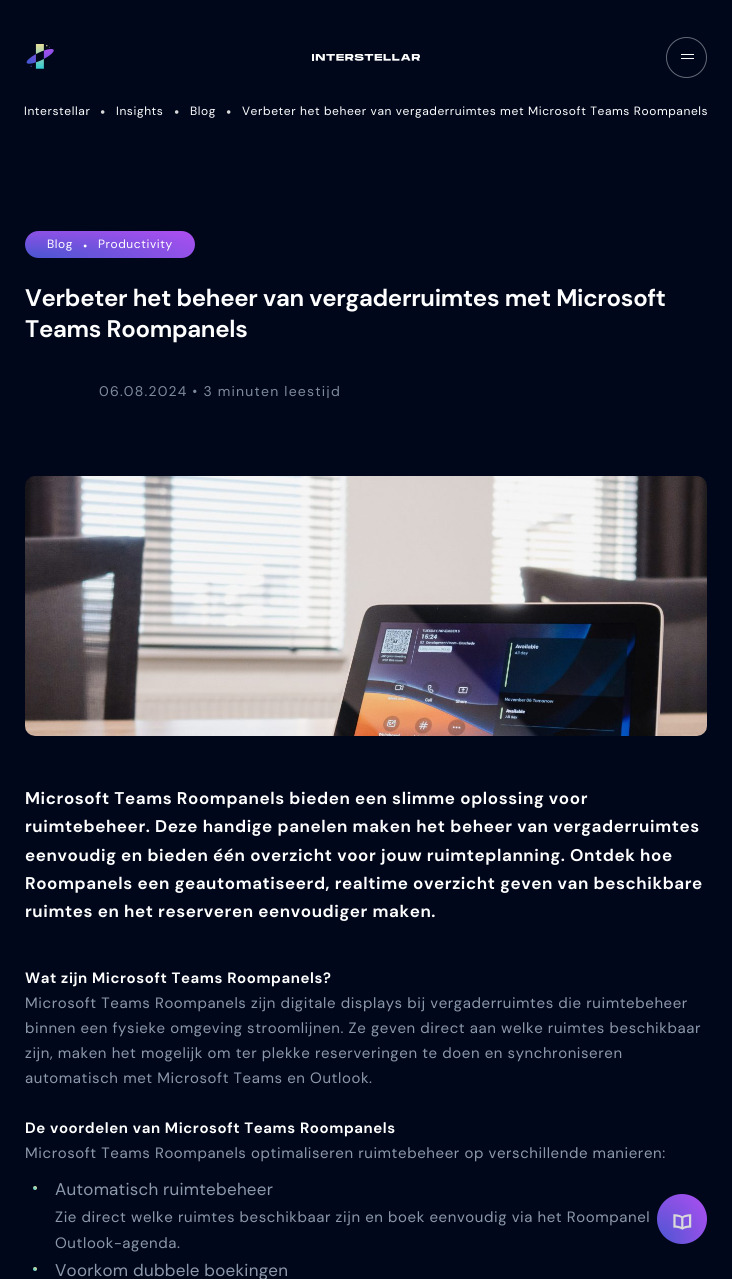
import math
import cairocffi as cairo

surface = cairo.ImageSurface(cairo.FORMAT_RGB24, 732, 1279)
cr = cairo.Context(surface)
options = cairo.FontOptions()
options.set_hint_metrics(cairo.HINT_METRICS_OFF)
options.set_hint_style(cairo.HINT_STYLE_NONE)
cr.set_font_options(options)
cr.set_miter_limit(4)


def use_color(code):
    cr.set_source_rgb(*(v / 255 for v in bytes.fromhex(code[-6:])))


def spaced_text(x, y, s, letter, word):
    cr.move_to(x, y)
    for ch in s:
        cr.show_text(ch)
        cr.rel_move_to(letter + word * (ch == ' '), 0)


def round_rect(x, y, w, h, r):
    cr.new_sub_path()
    for i, (u, v) in enumerate([(x + w - r, y + h - r), (x + r, y + h - r), (x + r, y + r), (x + w - r, y + r)]):
        cr.arc(u, v, r, i * math.pi / 2, (i + 1) * math.pi / 2)
    cr.close_path()


def picture(path, x, y, w, h):
    cr.save()
    cr.set_source_surface(cairo.ImageSurface.create_from_png(path), x, y)
    cr.rectangle(x, y, w, h)
    cr.fill()
    cr.restore()


use_color("#00071b")
cr.paint()
picture("img1.png", 26, 44, 28, 25)
picture("img2.png", 312, 54, 108, 7)
cr.arc(686.5, 57.5, 20, 0, 2 * math.pi)
use_color("#666a76")
cr.set_line_width(1)
cr.stroke()
use_color("#ffffff")
cr.rectangle(681, 54, 13, 1)
cr.fill()
cr.rectangle(681, 58, 13, 1)
cr.fill()
cr.select_font_face("DM Sans")
cr.set_font_size(12)
spaced_text(24, 115, "Interstellar", 0.6, 0)
cr.set_font_size(15)
use_color("#d9d9d9")
spaced_text(100, 117, "•", 0.6, 0)
cr.set_font_size(12)
use_color("#ffffff")
spaced_text(116, 115, "Insights", 0.6, 0)
cr.set_font_size(15)
use_color("#d9d9d9")
spaced_text(174, 117, "•", 0.6, 0)
cr.set_font_size(12)
use_color("#ffffff")
spaced_text(190, 115, "Blog", 0.6, 0)
cr.set_font_size(15)
use_color("#d9d9d9")
spaced_text(226, 117, "•", 0.6, 0)
cr.set_font_size(12)
use_color("#ffffff")
spaced_text(242, 115, "Verbeter het beheer van vergaderruimtes met Microsoft Teams Roompanels", 0.6, 0)
gradient = cairo.RadialGradient(0, 0, 0, 0, 0, 1)
gradient.set_matrix(cairo.Matrix(1 / 213, 0, 0, 1 / 38, -1 * 25 / 213, -1 * 258 / 38))
gradient.add_color_stop_rgba(0, 0.282, 0.337, 0.82, 1)
gradient.add_color_stop_rgba(0, 0.282, 0.337, 0.82, 1)
gradient.add_color_stop_rgba(1, 0.667, 0.31, 0.937, 1)
cr.set_source(gradient)
round_rect(25, 231, 170, 27, 13.5)
cr.fill()
use_color("#ffffff")
spaced_text(47, 248, "Blog", 0.6, 0)
spaced_text(83, 250, "•", 0.6, 0)
spaced_text(98, 248, "Productivity", 0.6, 0)
cr.select_font_face("DM Sans", cairo.FONT_SLANT_NORMAL, cairo.FONT_WEIGHT_BOLD)
cr.set_font_size(24)
spaced_text(25, 306, "Verbeter het beheer van vergaderruimtes met Microsoft", -0.28, 0)
spaced_text(25, 337, "Teams Roompanels", -0.28, 0)
cr.save()
round_rect(25, 354, 420, 44, 10)
cr.clip()
cr.select_font_face("DM Sans")
cr.set_font_size(14)
use_color("#7e8a9d")
spaced_text(99, 396, "06.08.2024 • 3 minuten leestijd", 1.2, 0)
cr.restore()
picture("img3.png", 25, 476, 682, 260)
cr.set_font_size(17)
spaced_text(25, 804, "Microsoft Teams Roompanels bieden een slimme oplossing voor", 0.6, 0)
spaced_text(25, 832, "ruimtebeheer. Deze handige panelen maken het beheer van vergaderruimtes", 0.6, 0)
spaced_text(25, 861, "eenvoudig en bieden één overzicht voor jouw ruimteplanning. Ontdek hoe", 0.6, 0)
spaced_text(25, 889, "Roompanels een geautomatiseerd, realtime overzicht geven van beschikbare", 0.6, 0)
spaced_text(25, 917, "ruimtes en het reserveren eenvoudiger maken.", 0.6, 0)
cr.set_font_size(15)
spaced_text(25, 983, "Wat zijn Microsoft Teams Roompanels?", 0.6, 0)
cr.select_font_face("DM Sans")
use_color("#8c98ab")
spaced_text(25, 1008, "Microsoft Teams Roompanels zijn digitale displays bij vergaderruimtes die ruimtebeheer", 0.6, 0)
spaced_text(25, 1033, "binnen een fysieke omgeving stroomlijnen. Ze geven direct aan welke ruimtes beschikbaar", 0.6, 0)
spaced_text(25, 1058, "zijn, maken het mogelijk om ter plekke reserveringen te doen en synchroniseren", 0.6, 0)
spaced_text(25, 1083, "automatisch met Microsoft Teams en Outlook.", 0.6, 0)
cr.select_font_face("DM Sans", cairo.FONT_SLANT_NORMAL, cairo.FONT_WEIGHT_BOLD)
use_color("#ffffff")
spaced_text(25, 1133, "De voordelen van Microsoft Teams Roompanels", 0.6, 0)
cr.select_font_face("DM Sans")
use_color("#8c98ab")
spaced_text(25, 1158, "Microsoft Teams Roompanels optimaliseren ruimtebeheer op verschillende manieren:", 0.6, 0)
gradient = cairo.RadialGradient(0, 0, 0, 0, 0, 1)
gradient.set_matrix(cairo.Matrix(1 / 5, 0, 0, 1 / 5.7, -1 * 33 / 5, -1 * 1190 / 5.7))
gradient.add_color_stop_rgba(0, 0.188, 0.788, 0.827, 1)
gradient.add_color_stop_rgba(1, 0.914, 0.867, 0.604, 1)
cr.set_source(gradient)
cr.new_path()
cr.arc(35, 1188, 2, 0, 2 * math.pi)
cr.fill()
cr.set_font_size(17)
use_color("#8c98ab")
spaced_text(55, 1195, "Automatisch ruimtebeheer", 0.25, 0)
cr.set_font_size(15)
spaced_text(55, 1222, "Zie direct welke ruimtes beschikbaar zijn en boek eenvoudig via het Roompanel", 0.6, 0)
spaced_text(55, 1248, "Outlook-agenda.", 0.6, 0)
gradient = cairo.RadialGradient(0, 0, 0, 0, 0, 1)
gradient.set_matrix(cairo.Matrix(1 / 5, 0, 0, 1 / 5.7, -1 * 33 / 5, -1 * 1271 / 5.7))
gradient.add_color_stop_rgba(0, 0.188, 0.788, 0.827, 1)
gradient.add_color_stop_rgba(1, 0.914, 0.867, 0.604, 1)
cr.set_source(gradient)
cr.new_path()
cr.arc(35, 1269, 2, 0, 2 * math.pi)
cr.fill()
cr.set_font_size(17)
use_color("#8c98ab")
spaced_text(55, 1276, "Voorkom dubbele boekingen", 0.25, 0)
gradient = cairo.RadialGradient(0, 0, 0, 0, 0, 1)
gradient.set_matrix(cairo.Matrix(1 / 63, 0, 0, 1 / 71, -1 * 657 / 63, -1 * 1244 / 71))
gradient.add_color_stop_rgba(0, 0.282, 0.337, 0.82, 1)
gradient.add_color_stop_rgba(0, 0.282, 0.337, 0.82, 1)
gradient.add_color_stop_rgba(1, 0.667, 0.31, 0.937, 1)
cr.set_source(gradient)
cr.new_path()
cr.arc(682, 1219, 25, 0, 2 * math.pi)
cr.fill()
picture("img4.png", 673, 1214, 19, 16)
surface.write_to_png("result.png")
